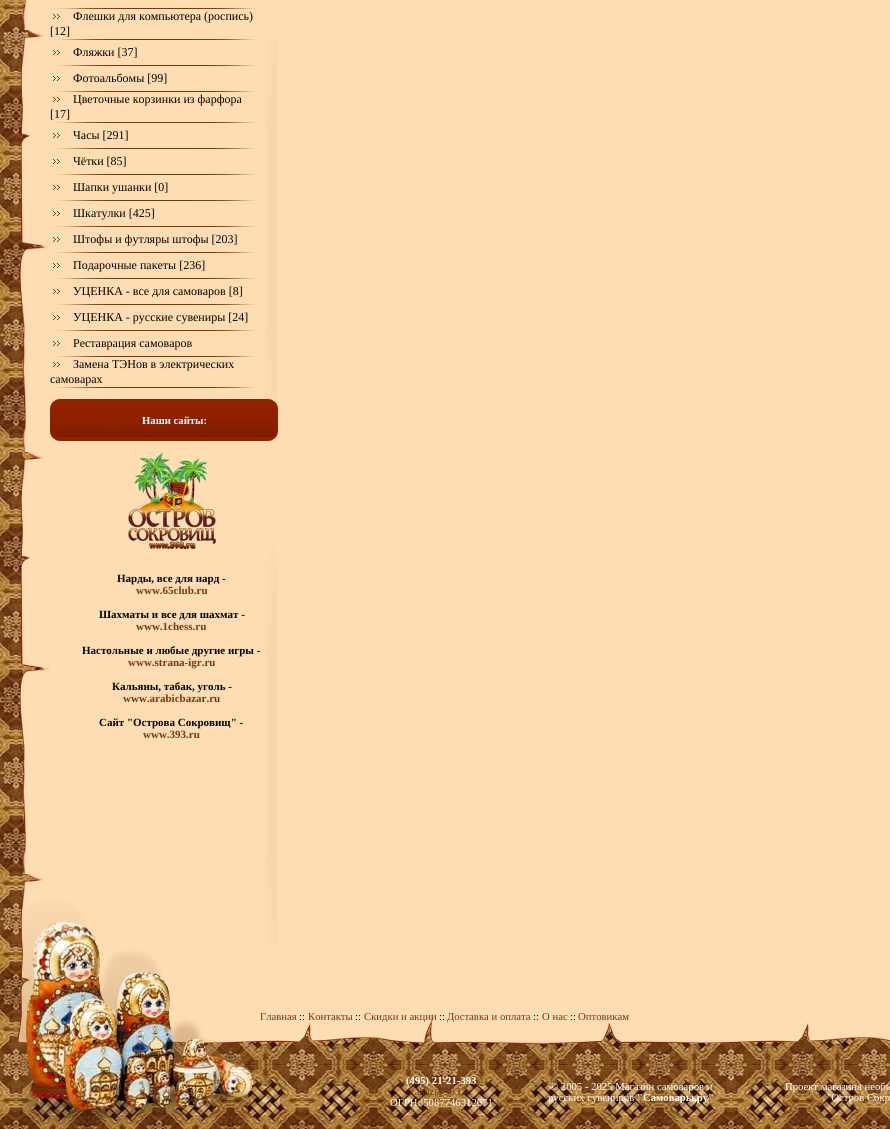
import math
import cairocffi as cairo

surface = cairo.ImageSurface(cairo.FORMAT_RGB24, 890, 1129)
cr = cairo.Context(surface)
options = cairo.FontOptions()
options.set_hint_metrics(cairo.HINT_METRICS_OFF)
options.set_hint_style(cairo.HINT_STYLE_NONE)
cr.set_font_options(options)
cr.set_miter_limit(4)


def use_color(code):
    cr.set_source_rgb(*(v / 255 for v in bytes.fromhex(code[-6:])))


def picture(path, x, y, w, h):
    cr.save()
    cr.set_source_surface(cairo.ImageSurface.create_from_png(path), x, y)
    cr.rectangle(x, y, w, h)
    cr.fill()
    cr.restore()


use_color("#ffffff")
cr.paint()
picture("img1.png", 0, 0, 890, 1129)
picture("img2.png", 20, 0, 30, 1011)
picture("img3.png", 13, 900, 37, 111)
use_color("#ffddb3")
cr.rectangle(50, 0, 840, 1011)
cr.fill()
picture("img4.png", 50, 897, 121, 114)
picture("img5.png", 266, 39, 11, 907)
picture("img6.png", 54, 8, 204, 1)
picture("img7.png", 53, 14, 7, 5)
cr.select_font_face("Liberation Serif")
cr.set_font_size(12)
use_color("#000000")
cr.move_to(73, 20)
cr.show_text("Флешки для компьютера (роспись)")
cr.move_to(50, 35)
cr.show_text("[12]")
picture("img6.png", 54, 39, 204, 1)
picture("img7.png", 53, 50, 7, 5)
cr.move_to(73, 56)
cr.show_text("Фляжки [37]")
picture("img6.png", 54, 65, 204, 1)
picture("img7.png", 53, 76, 7, 5)
cr.move_to(73, 82)
cr.show_text("Фотоальбомы [99]")
picture("img6.png", 54, 91, 204, 1)
picture("img7.png", 53, 97, 7, 5)
cr.move_to(73, 103)
cr.show_text("Цветочные корзинки из фарфора")
cr.move_to(50, 118)
cr.show_text("[17]")
picture("img6.png", 54, 122, 204, 1)
picture("img7.png", 53, 133, 7, 5)
cr.move_to(73, 139)
cr.show_text("Часы [291]")
picture("img6.png", 54, 148, 204, 1)
picture("img7.png", 53, 159, 7, 5)
cr.move_to(73, 165)
cr.show_text("Чётки [85]")
picture("img6.png", 54, 174, 204, 1)
picture("img7.png", 53, 185, 7, 5)
cr.move_to(73, 191)
cr.show_text("Шапки ушанки [0]")
picture("img6.png", 54, 200, 204, 1)
picture("img7.png", 53, 211, 7, 5)
cr.move_to(73, 217)
cr.show_text("Шкатулки [425]")
picture("img6.png", 54, 226, 204, 1)
picture("img7.png", 53, 237, 7, 5)
cr.move_to(73, 243)
cr.show_text("Штофы и футляры штофы [203]")
picture("img6.png", 54, 252, 204, 1)
picture("img7.png", 53, 263, 7, 5)
cr.move_to(73, 269)
cr.show_text("Подарочные пакеты [236]")
picture("img6.png", 54, 278, 204, 1)
picture("img7.png", 53, 289, 7, 5)
cr.move_to(73, 295)
cr.show_text("УЦЕНКА - все для самоваров [8]")
picture("img6.png", 54, 304, 204, 1)
picture("img7.png", 53, 315, 7, 5)
cr.move_to(73, 321)
cr.show_text("УЦЕНКА - русские сувениры [24]")
picture("img6.png", 54, 330, 204, 1)
picture("img7.png", 53, 341, 7, 5)
cr.move_to(73, 347)
cr.show_text("Реставрация самоваров")
picture("img6.png", 54, 356, 204, 1)
picture("img7.png", 53, 362, 7, 5)
cr.move_to(73, 368)
cr.show_text("Замена ТЭНов в электрических")
cr.move_to(50, 383)
cr.show_text("самоварах")
picture("img6.png", 54, 387, 204, 1)
picture("img8.png", 50, 399, 228, 42)
cr.select_font_face("Liberation Serif", cairo.FONT_SLANT_NORMAL, cairo.FONT_WEIGHT_BOLD)
cr.set_font_size(10.7)
use_color("#ffffff")
cr.move_to(142, 424)
cr.show_text("Наши сайты:")
picture("img9.png", 128, 452, 88, 98)
cr.set_font_size(11)
use_color("#000000")
cr.move_to(117, 582)
cr.show_text("Нарды, все для нард -")
use_color("#733812")
cr.move_to(136, 594)
cr.show_text("www.65club.ru")
use_color("#000000")
cr.move_to(99, 618)
cr.show_text("Шахматы и все для шахмат -")
use_color("#733812")
cr.move_to(136, 630)
cr.show_text("www.1chess.ru")
use_color("#000000")
cr.move_to(82, 654)
cr.show_text("Настольные и любые другие игры -")
use_color("#733812")
cr.move_to(128, 666)
cr.show_text("www.strana-igr.ru")
use_color("#000000")
cr.move_to(112, 690)
cr.show_text("Кальяны, табак, уголь -")
use_color("#733812")
cr.move_to(123, 702)
cr.show_text("www.arabicbazar.ru")
use_color("#000000")
cr.move_to(99, 726)
cr.show_text("Сайт \"Острова Сокровищ\" -")
use_color("#733812")
cr.move_to(143, 738)
cr.show_text("www.393.ru")
picture("img10.png", 18, 1011, 10, 32)
picture("img11.png", 12, 1011, 38, 43)
picture("img12.png", 112, 1011, 778, 33)
picture("img13.png", 50, 1011, 188, 43)
cr.select_font_face("Liberation Serif")
cr.set_font_size(10.7)
cr.move_to(260, 1020)
cr.show_text("Главная")
use_color("#000000")
cr.move_to(299, 1020)
cr.show_text("::")
use_color("#733812")
cr.move_to(308, 1020)
cr.show_text("Контакты")
use_color("#000000")
cr.move_to(355, 1020)
cr.show_text("::")
use_color("#733812")
cr.move_to(364, 1020)
cr.show_text("Скидки и акции")
use_color("#000000")
cr.move_to(439, 1020)
cr.show_text("::")
use_color("#733812")
cr.move_to(447, 1020)
cr.show_text("Доставка и оплата")
use_color("#000000")
cr.move_to(533, 1020)
cr.show_text("::")
use_color("#733812")
cr.move_to(542, 1020)
cr.show_text("О нас")
use_color("#000000")
cr.move_to(570, 1020)
cr.show_text("::")
use_color("#733812")
cr.move_to(578, 1020)
cr.show_text("Оптовикам")
picture("img14.png", 12, 1054, 248, 75)
cr.select_font_face("Liberation Serif", cairo.FONT_SLANT_NORMAL, cairo.FONT_WEIGHT_BOLD)
use_color("#ffffff")
cr.move_to(406, 1084)
cr.show_text("(495) 21-21-393")
cr.select_font_face("Liberation Serif")
use_color("#733812")
cr.move_to(410, 1095)
cr.show_text("zakaz@393.ru")
use_color("#ffffff")
cr.move_to(390, 1106)
cr.show_text("ОГРН: 5087746312671")
cr.move_to(550, 1090)
cr.show_text("© 2005 - 2025 Магазин самоваров и")
cr.move_to(548, 1101)
cr.show_text("русских сувениров")
cr.select_font_face("Liberation Serif", cairo.FONT_SLANT_NORMAL, cairo.FONT_WEIGHT_BOLD)
cr.move_to(637, 1101)
cr.show_text("\"Самовары.ру\"")
cr.select_font_face("Liberation Serif")
cr.move_to(785, 1090)
cr.show_text("Проект магазина необы")
cr.move_to(827, 1101)
cr.show_text("\"Остров Сокр")
surface.write_to_png("result.png")
